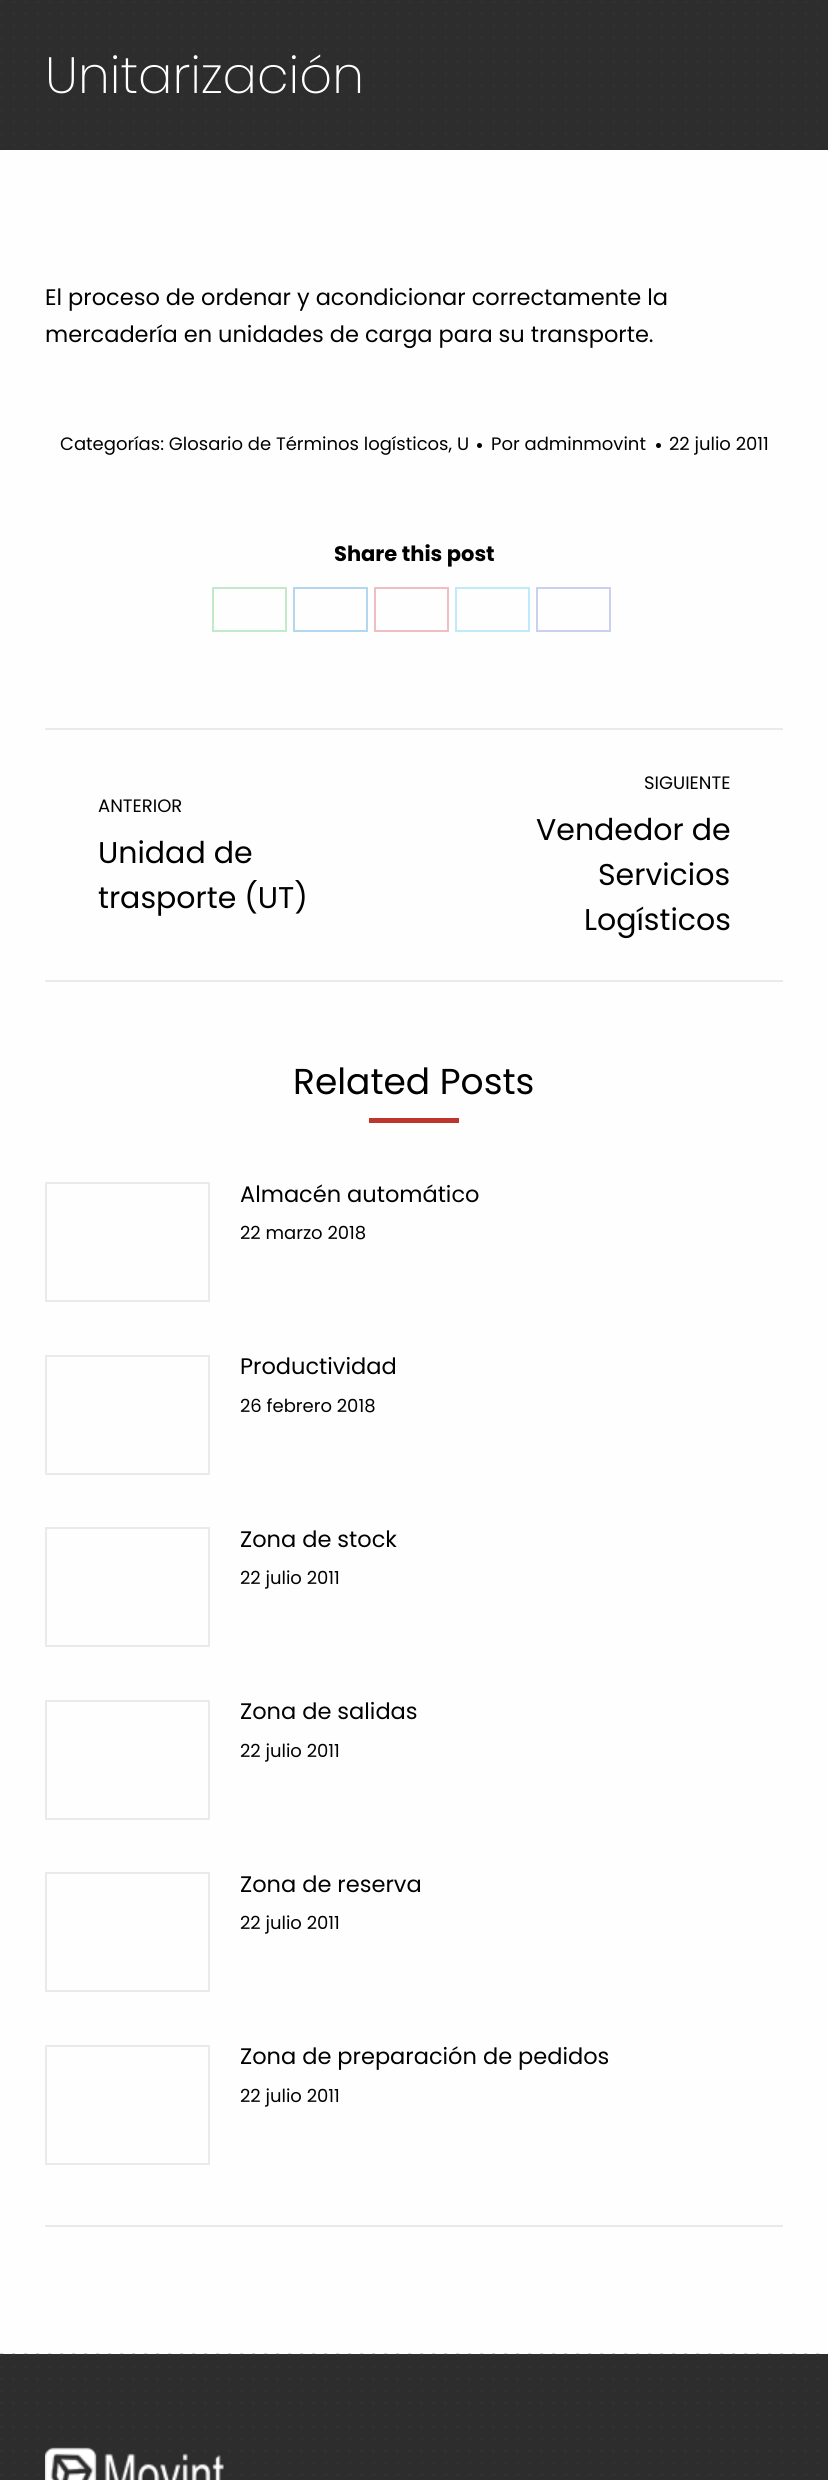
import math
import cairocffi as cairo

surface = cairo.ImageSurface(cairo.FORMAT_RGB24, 828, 2480)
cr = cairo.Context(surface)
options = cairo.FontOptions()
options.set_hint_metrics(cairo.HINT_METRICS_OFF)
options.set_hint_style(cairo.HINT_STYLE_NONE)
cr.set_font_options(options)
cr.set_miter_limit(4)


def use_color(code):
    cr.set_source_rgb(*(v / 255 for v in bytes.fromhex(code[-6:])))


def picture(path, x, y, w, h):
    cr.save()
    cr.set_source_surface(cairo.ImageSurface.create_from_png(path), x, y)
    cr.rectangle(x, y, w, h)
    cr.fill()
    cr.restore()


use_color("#fefefe")
cr.paint()
use_color("#2d2d2d")
cr.rectangle(0, 0, 828, 150)
cr.fill()
picture("img1.png", 1, 1, 817, 145)
cr.select_font_face("Poppins ExtraLight")
cr.set_font_size(51)
use_color("#ffffff")
cr.move_to(45, 93)
cr.show_text("Unitarización")
cr.select_font_face("Poppins")
cr.set_font_size(22.5)
use_color("#000000")
cr.move_to(45, 305)
cr.show_text("El proceso de ordenar y acondicionar correctamente la")
cr.move_to(45, 342)
cr.show_text("mercadería en unidades de carga para su transporte.")
cr.set_font_size(18)
cr.move_to(60, 450)
cr.show_text("Categorías: Glosario de Términos logísticos, U")
cr.new_path()
cr.arc(479.5, 445.5, 2.5, 0, 2 * math.pi)
cr.fill()
cr.move_to(491, 450)
cr.show_text("Por adminmovint")
cr.new_path()
cr.arc(658.5, 445.5, 2.5, 0, 2 * math.pi)
cr.fill()
cr.move_to(669, 450)
cr.show_text("22 julio 2011")
cr.select_font_face("Poppins", cairo.FONT_SLANT_NORMAL, cairo.FONT_WEIGHT_BOLD)
cr.set_font_size(21)
cr.move_to(334, 561)
cr.show_text("Share this post")
cr.rectangle(213, 588, 73, 43)
use_color("#c2e9c9")
cr.stroke()
cr.rectangle(294, 588, 73, 43)
use_color("#b2d7ee")
cr.stroke()
cr.rectangle(375, 588, 73, 43)
use_color("#f0bec1")
cr.stroke()
cr.rectangle(456, 588, 73, 43)
use_color("#beebf8")
cr.stroke()
cr.rectangle(537, 588, 73, 43)
use_color("#c9d1ee")
cr.stroke()
use_color("#eaeaea")
cr.rectangle(45, 728, 738, 2)
cr.fill()
cr.rectangle(45, 980, 738, 2)
cr.fill()
cr.select_font_face("Poppins")
cr.set_font_size(18)
use_color("#000000")
cr.move_to(98, 812)
cr.show_text("ANTERIOR")
cr.set_font_size(30)
cr.move_to(98, 863)
cr.show_text("Unidad de")
cr.move_to(98, 908)
cr.show_text("trasporte (UT)")
cr.set_font_size(18)
cr.move_to(644, 789)
cr.show_text("SIGUIENTE")
cr.set_font_size(30)
cr.move_to(536, 840)
cr.show_text("Vendedor de")
cr.move_to(598, 885)
cr.show_text("Servicios")
cr.move_to(584, 930)
cr.show_text("Logísticos")
use_color("#eaeaea")
cr.rectangle(45, 2225, 738, 2)
cr.fill()
cr.set_font_size(36)
use_color("#000000")
cr.move_to(293, 1094)
cr.show_text("Related Posts")
use_color("#be352d")
cr.rectangle(369, 1118, 90, 5)
cr.fill()
cr.rectangle(46, 1183, 163, 118)
use_color("#eaeaea")
cr.stroke()
cr.set_font_size(22.5)
use_color("#000000")
cr.move_to(240, 1202)
cr.show_text("Almacén automático")
cr.set_font_size(18)
cr.move_to(240, 1239)
cr.show_text("22 marzo 2018")
cr.rectangle(46, 1356, 163, 118)
use_color("#eaeaea")
cr.stroke()
cr.set_font_size(22.5)
use_color("#000000")
cr.move_to(240, 1374)
cr.show_text("Productividad")
cr.set_font_size(18)
cr.move_to(240, 1412)
cr.show_text("26 febrero 2018")
cr.rectangle(46, 1528, 163, 118)
use_color("#eaeaea")
cr.stroke()
cr.set_font_size(22.5)
use_color("#000000")
cr.move_to(240, 1547)
cr.show_text("Zona de stock")
cr.set_font_size(18)
cr.move_to(240, 1584)
cr.show_text("22 julio 2011")
cr.rectangle(46, 1701, 163, 118)
use_color("#eaeaea")
cr.stroke()
cr.set_font_size(22.5)
use_color("#000000")
cr.move_to(240, 1719)
cr.show_text("Zona de salidas")
cr.set_font_size(18)
cr.move_to(240, 1757)
cr.show_text("22 julio 2011")
cr.rectangle(46, 1873, 163, 118)
use_color("#eaeaea")
cr.stroke()
cr.set_font_size(22.5)
use_color("#000000")
cr.move_to(240, 1892)
cr.show_text("Zona de reserva")
cr.set_font_size(18)
cr.move_to(240, 1929)
cr.show_text("22 julio 2011")
cr.rectangle(46, 2046, 163, 118)
use_color("#eaeaea")
cr.stroke()
cr.set_font_size(22.5)
use_color("#000000")
cr.move_to(240, 2064)
cr.show_text("Zona de preparación de pedidos")
cr.set_font_size(18)
cr.move_to(240, 2102)
cr.show_text("22 julio 2011")
use_color("#2d2d2d")
cr.rectangle(0, 2354, 828, 126)
cr.fill()
picture("img2.png", 0, 2353, 828, 123)
picture("img3.png", 45, 2447, 179, 33)
surface.write_to_png("result.png")
